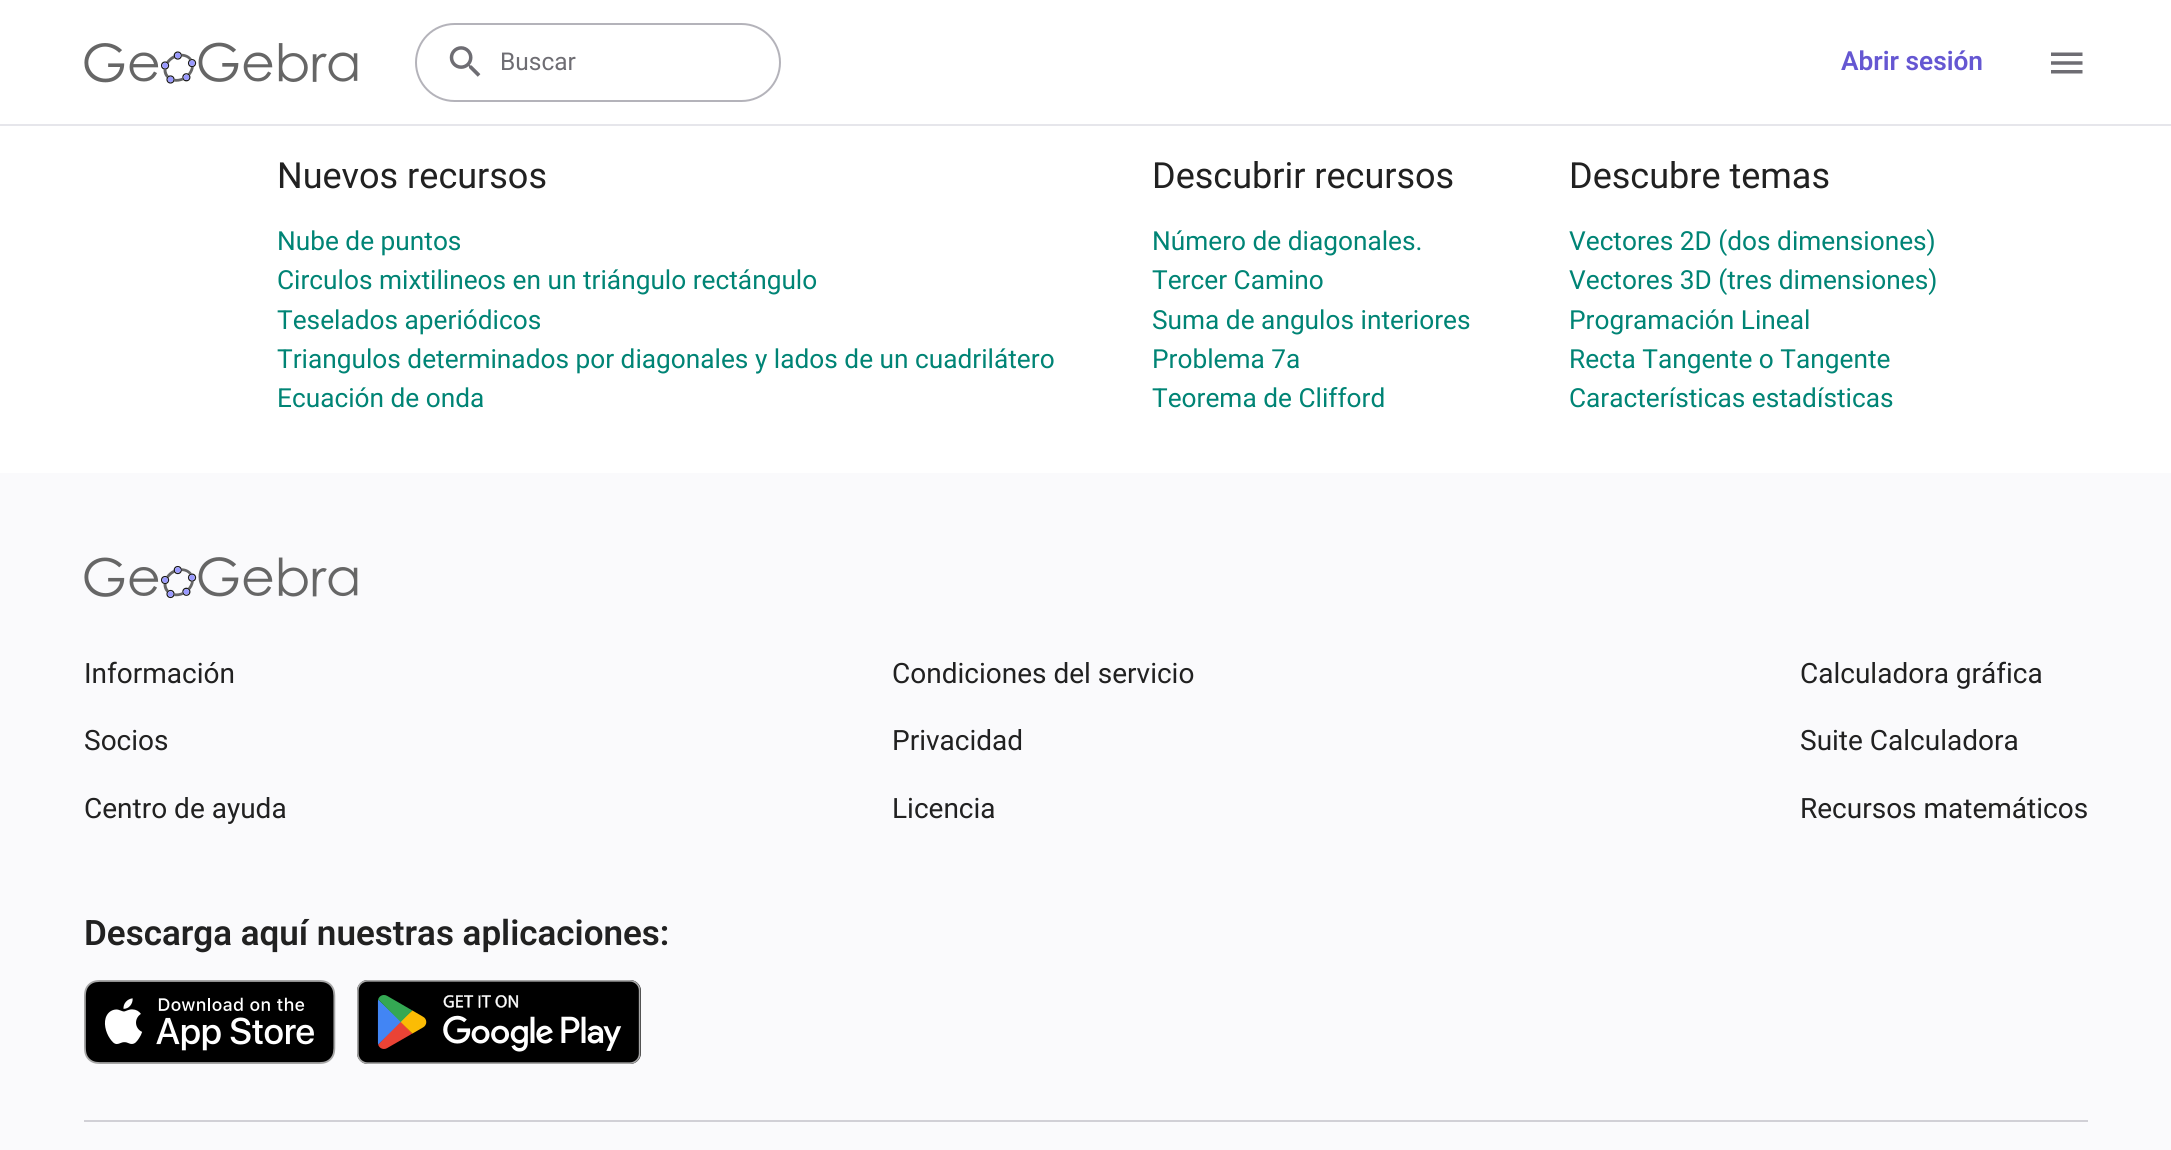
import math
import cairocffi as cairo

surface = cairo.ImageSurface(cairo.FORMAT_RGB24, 2171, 1150)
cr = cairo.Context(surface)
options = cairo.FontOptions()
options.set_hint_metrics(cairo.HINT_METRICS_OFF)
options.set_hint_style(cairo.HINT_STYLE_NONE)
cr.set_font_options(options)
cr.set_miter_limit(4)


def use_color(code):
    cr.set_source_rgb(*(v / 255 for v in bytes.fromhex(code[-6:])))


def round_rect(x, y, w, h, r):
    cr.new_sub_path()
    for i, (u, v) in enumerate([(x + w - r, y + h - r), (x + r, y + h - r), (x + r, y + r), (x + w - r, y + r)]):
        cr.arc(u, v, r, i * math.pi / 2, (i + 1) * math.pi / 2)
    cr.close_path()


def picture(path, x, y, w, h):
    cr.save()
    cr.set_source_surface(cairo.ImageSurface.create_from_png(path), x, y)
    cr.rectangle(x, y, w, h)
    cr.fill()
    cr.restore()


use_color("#ffffff")
cr.paint()
use_color("#e6e6eb")
cr.rectangle(0, 124, 2171, 2)
cr.fill()
picture("img1.png", 84, 42, 274, 42)
round_rect(416, 24, 364, 77, 38.5)
use_color("#b4b3ba")
cr.stroke()
picture("img2.png", 449, 46, 32, 31)
cr.select_font_face("Roboto")
cr.set_font_size(24.5)
use_color("#6e6d73")
cr.move_to(500, 70)
cr.show_text("Buscar")
cr.select_font_face("Roboto SemiBold")
cr.set_font_size(26.25)
use_color("#6557d2")
cr.move_to(1841, 70)
cr.show_text("Abrir sesión")
picture("img3.png", 2051, 52, 32, 22)
cr.select_font_face("Roboto")
cr.set_font_size(36)
use_color("#212121")
cr.move_to(277, 188)
cr.show_text("Nuevos recursos")
cr.set_font_size(26.25)
use_color("#008475")
cr.move_to(277, 250)
cr.show_text("Nube de puntos")
cr.move_to(277, 289)
cr.show_text("Circulos mixtilineos en un triángulo rectángulo")
cr.move_to(277, 329)
cr.show_text("Teselados aperiódicos")
cr.move_to(277, 368)
cr.show_text("Triangulos determinados por diagonales y lados de un cuadrilátero")
cr.move_to(277, 407)
cr.show_text("Ecuación de onda")
cr.set_font_size(36)
use_color("#212121")
cr.move_to(1152, 188)
cr.show_text("Descubrir recursos")
cr.set_font_size(26.25)
use_color("#008475")
cr.move_to(1152, 250)
cr.show_text("Número de diagonales.")
cr.move_to(1152, 289)
cr.show_text("Tercer Camino")
cr.move_to(1152, 329)
cr.show_text("Suma de angulos interiores")
cr.move_to(1152, 368)
cr.show_text("Problema 7a")
cr.move_to(1152, 407)
cr.show_text("Teorema de Clifford")
cr.set_font_size(36)
use_color("#212121")
cr.move_to(1569, 188)
cr.show_text("Descubre temas")
cr.set_font_size(26.25)
use_color("#008475")
cr.move_to(1569, 250)
cr.show_text("Vectores 2D (dos dimensiones)")
cr.move_to(1569, 289)
cr.show_text("Vectores 3D (tres dimensiones)")
cr.move_to(1569, 329)
cr.show_text("Programación Lineal")
cr.move_to(1569, 368)
cr.show_text("Recta Tangente o Tangente")
cr.move_to(1569, 407)
cr.show_text("Características estadísticas")
use_color("#fafafc")
cr.rectangle(0, 473, 2171, 677)
cr.fill()
picture("img4.png", 84, 557, 274, 42)
cr.set_font_size(28)
use_color("#212121")
cr.move_to(84, 683)
cr.show_text("Información")
cr.move_to(84, 750)
cr.show_text("Socios")
cr.move_to(84, 818)
cr.show_text("Centro de ayuda")
cr.move_to(892, 683)
cr.show_text("Condiciones del servicio")
cr.move_to(892, 750)
cr.show_text("Privacidad")
cr.move_to(892, 818)
cr.show_text("Licencia")
cr.move_to(1800, 683)
cr.show_text("Calculadora gráfica")
cr.move_to(1800, 750)
cr.show_text("Suite Calculadora")
cr.move_to(1800, 818)
cr.show_text("Recursos matemáticos")
cr.select_font_face("Roboto SemiBold")
cr.set_font_size(35)
cr.move_to(84, 945)
cr.show_text("Descarga aquí nuestras aplicaciones:")
picture("img5.png", 84, 980, 252, 84)
picture("img6.png", 357, 980, 284, 84)
use_color("#d1d0d6")
cr.rectangle(84, 1120, 2004, 2)
cr.fill()
surface.write_to_png("result.png")
